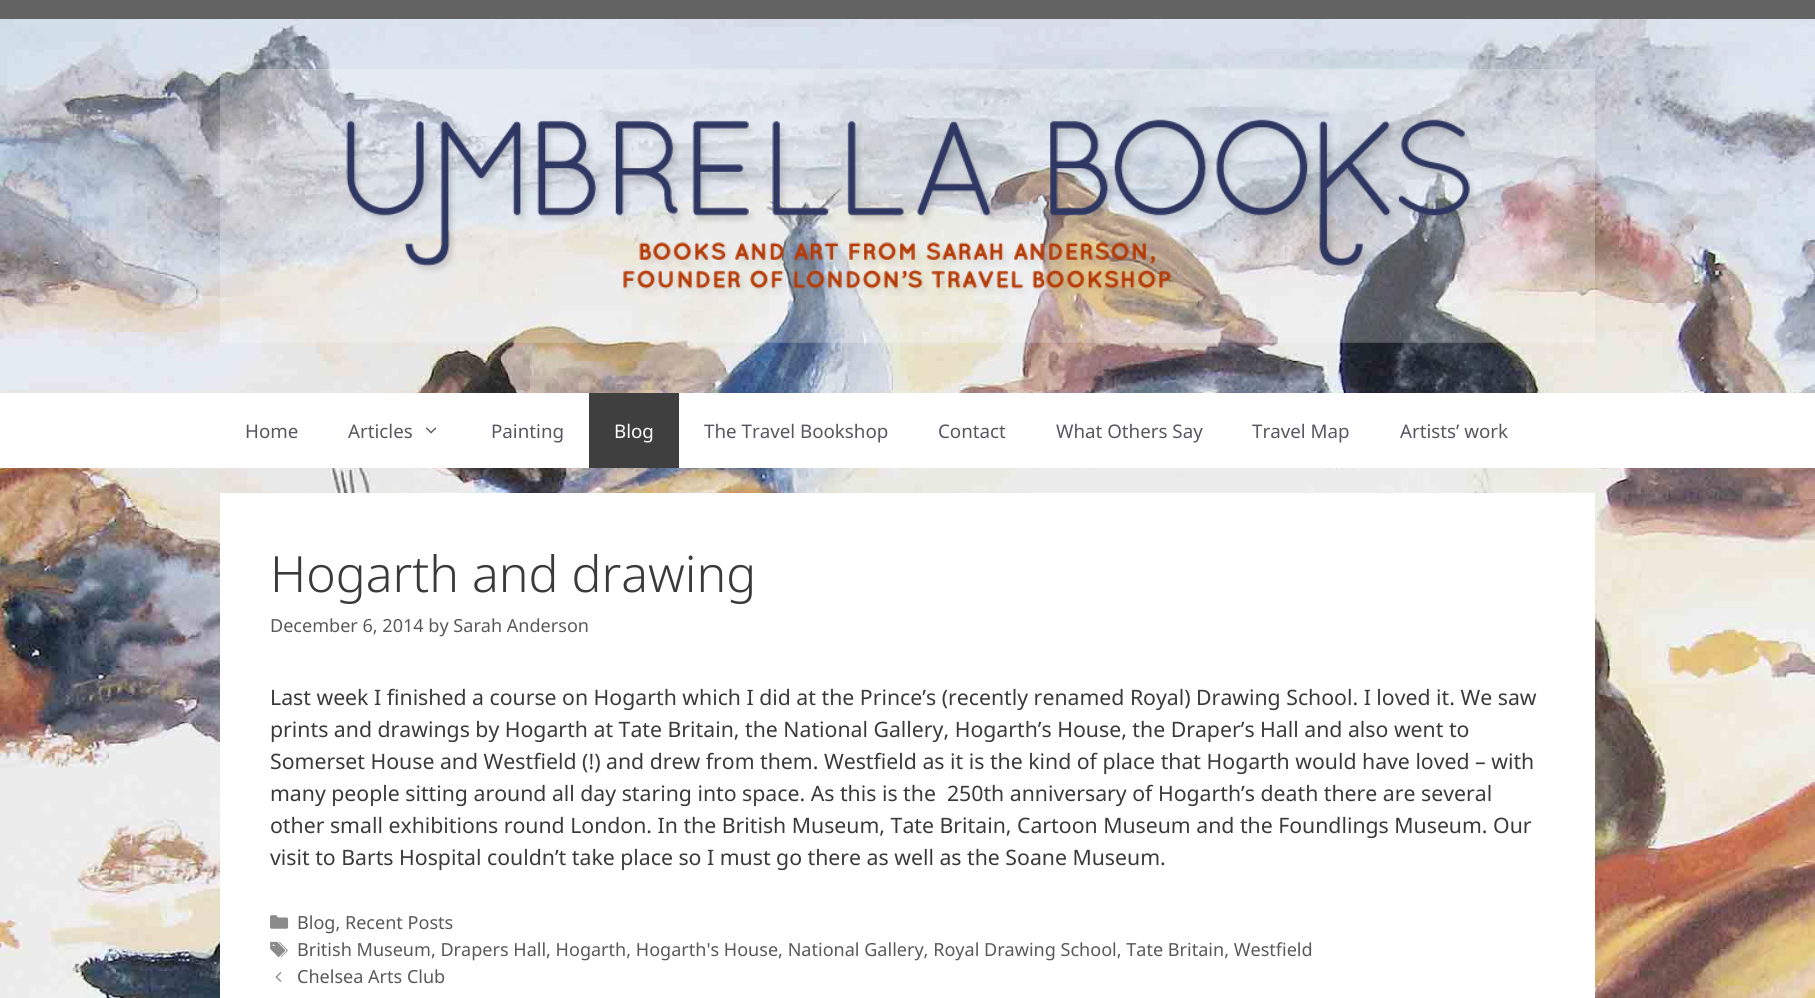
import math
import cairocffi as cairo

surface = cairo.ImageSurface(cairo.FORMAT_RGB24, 1815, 998)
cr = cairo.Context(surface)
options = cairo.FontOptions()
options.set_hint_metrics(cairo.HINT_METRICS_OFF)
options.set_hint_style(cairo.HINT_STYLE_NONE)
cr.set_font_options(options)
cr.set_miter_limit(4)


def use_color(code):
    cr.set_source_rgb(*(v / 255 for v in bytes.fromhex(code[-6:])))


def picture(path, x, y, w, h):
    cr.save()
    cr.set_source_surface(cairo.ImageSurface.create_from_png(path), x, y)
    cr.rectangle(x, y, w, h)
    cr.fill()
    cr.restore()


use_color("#ffffff")
cr.paint()
picture("img1.png", 0, 19, 1815, 979)
use_color("#636363")
cr.rectangle(0, 0, 1815, 19)
cr.fill()
cr.set_source_rgba(1, 1, 1, 0.04)
cr.rectangle(0, 19, 1815, 374)
cr.fill()
picture("img2.png", 220, 69, 1375, 274)
use_color("#ffffff")
cr.rectangle(0, 393, 1815, 75)
cr.fill()
cr.select_font_face("Noto Sans")
cr.set_font_size(18.75)
use_color("#575760")
cr.move_to(245, 438)
cr.show_text("Home")
cr.move_to(348, 438)
cr.show_text("Articles")
picture("img3.png", 425, 427, 12, 7)
cr.move_to(491, 438)
cr.show_text("Painting")
use_color("#3f3f3f")
cr.rectangle(589, 393, 90, 75)
cr.fill()
use_color("#ffffff")
cr.move_to(614, 438)
cr.show_text("Blog")
use_color("#575760")
cr.move_to(704, 438)
cr.show_text("The Travel Bookshop")
cr.move_to(938, 438)
cr.show_text("Contact")
cr.move_to(1056, 438)
cr.show_text("What Others Say")
cr.move_to(1252, 438)
cr.show_text("Travel Map")
cr.move_to(1400, 438)
cr.show_text("Artists’ work")
use_color("#ffffff")
cr.rectangle(220, 493, 1375, 505)
cr.fill()
cr.select_font_face("Noto Sans Light")
cr.set_font_size(50)
use_color("#3a3a3a")
cr.move_to(270, 592)
cr.show_text("Hogarth and drawing")
cr.select_font_face("Noto Sans")
cr.set_font_size(18.05)
use_color("#595959")
cr.move_to(270, 632)
cr.show_text("December 6, 2014 by Sarah Anderson")
cr.set_font_size(21.25)
use_color("#3a3a3a")
cr.move_to(270, 705)
cr.show_text("Last week I finished a course on Hogarth which I did at the Prince’s (recently renamed Royal) Drawing School. I loved it. We saw")
cr.move_to(270, 737)
cr.show_text("prints and drawings by Hogarth at Tate Britain, the National Gallery, Hogarth’s House, the Draper’s Hall and also went to")
cr.move_to(270, 769)
cr.show_text("Somerset House and Westfield (!) and drew from them. Westfield as it is the kind of place that Hogarth would have loved – with")
cr.move_to(270, 801)
cr.show_text("many people sitting around all day staring into space. As this is the  250th anniversary of Hogarth’s death there are several")
cr.move_to(270, 833)
cr.show_text("other small exhibitions round London. In the British Museum, Tate Britain, Cartoon Museum and the Foundlings Museum. Our")
cr.move_to(270, 865)
cr.show_text("visit to Barts Hospital couldn’t take place so I must go there as well as the Soane Museum.")
picture("img4.png", 270, 915, 19, 14)
cr.set_font_size(18.05)
use_color("#595959")
cr.move_to(297, 929)
cr.show_text("Blog, Recent Posts")
picture("img5.png", 270, 941, 18, 16)
cr.move_to(297, 956)
cr.show_text("British Museum, Drapers Hall, Hogarth, Hogarth's House, National Gallery, Royal Drawing School, Tate Britain, Westfield")
picture("img6.png", 275, 972, 7, 10)
cr.move_to(297, 983)
cr.show_text("Chelsea Arts Club")
surface.write_to_png("result.png")
